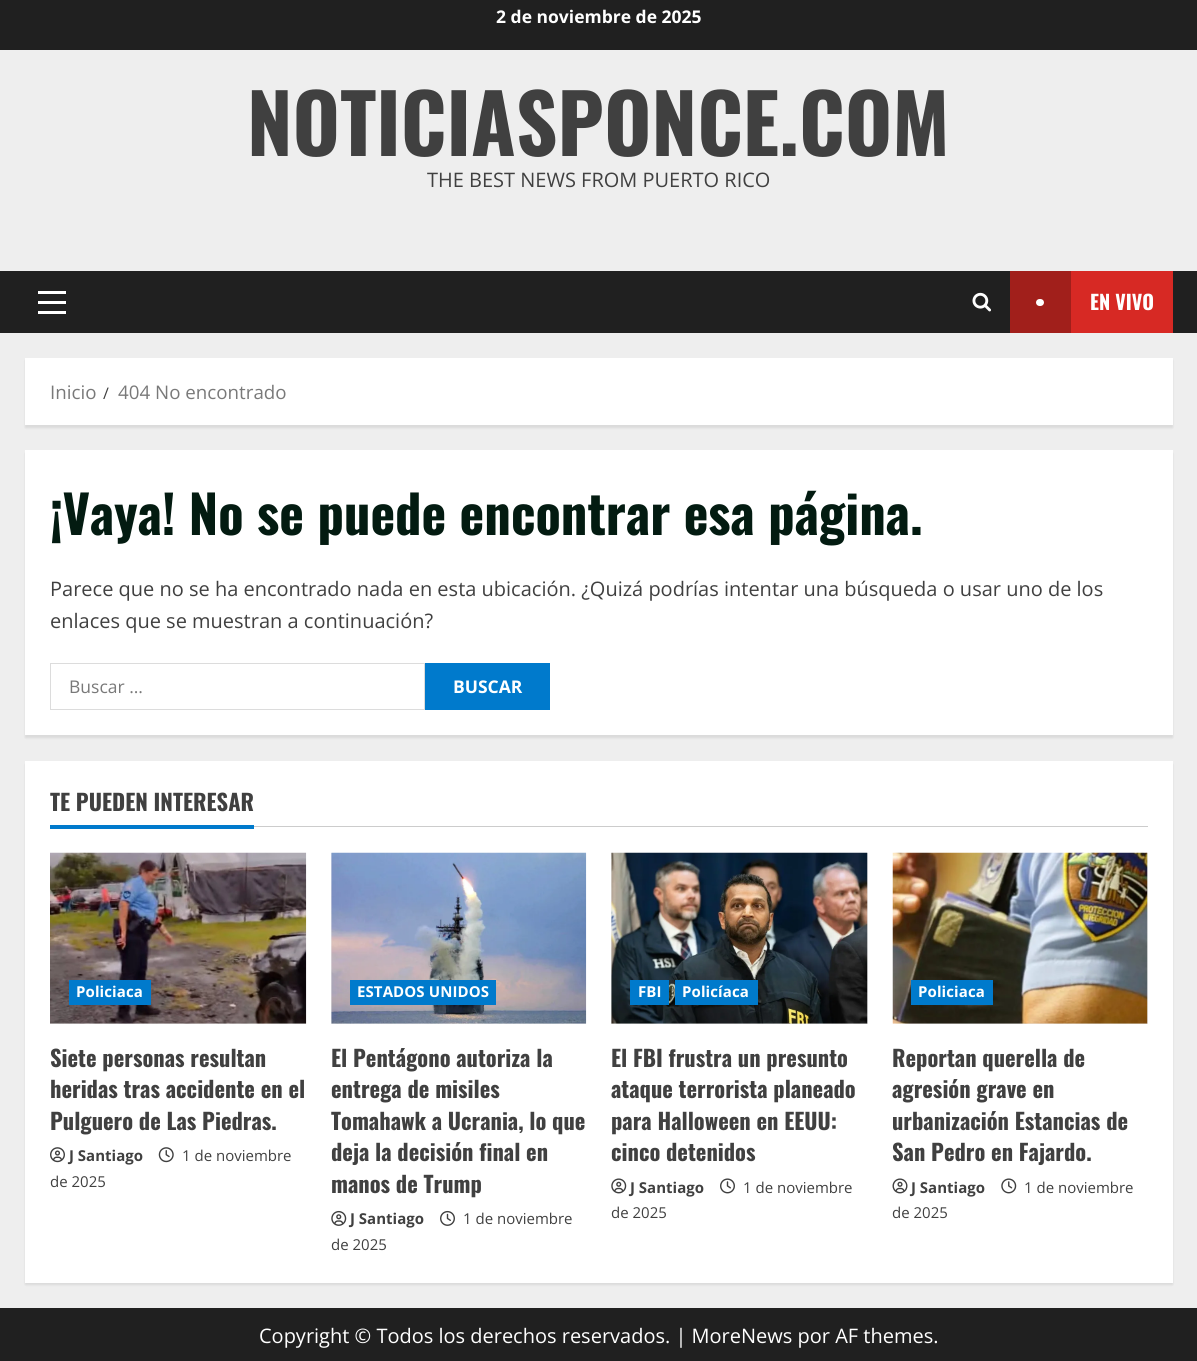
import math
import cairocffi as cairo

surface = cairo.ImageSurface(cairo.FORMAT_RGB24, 1197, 1361)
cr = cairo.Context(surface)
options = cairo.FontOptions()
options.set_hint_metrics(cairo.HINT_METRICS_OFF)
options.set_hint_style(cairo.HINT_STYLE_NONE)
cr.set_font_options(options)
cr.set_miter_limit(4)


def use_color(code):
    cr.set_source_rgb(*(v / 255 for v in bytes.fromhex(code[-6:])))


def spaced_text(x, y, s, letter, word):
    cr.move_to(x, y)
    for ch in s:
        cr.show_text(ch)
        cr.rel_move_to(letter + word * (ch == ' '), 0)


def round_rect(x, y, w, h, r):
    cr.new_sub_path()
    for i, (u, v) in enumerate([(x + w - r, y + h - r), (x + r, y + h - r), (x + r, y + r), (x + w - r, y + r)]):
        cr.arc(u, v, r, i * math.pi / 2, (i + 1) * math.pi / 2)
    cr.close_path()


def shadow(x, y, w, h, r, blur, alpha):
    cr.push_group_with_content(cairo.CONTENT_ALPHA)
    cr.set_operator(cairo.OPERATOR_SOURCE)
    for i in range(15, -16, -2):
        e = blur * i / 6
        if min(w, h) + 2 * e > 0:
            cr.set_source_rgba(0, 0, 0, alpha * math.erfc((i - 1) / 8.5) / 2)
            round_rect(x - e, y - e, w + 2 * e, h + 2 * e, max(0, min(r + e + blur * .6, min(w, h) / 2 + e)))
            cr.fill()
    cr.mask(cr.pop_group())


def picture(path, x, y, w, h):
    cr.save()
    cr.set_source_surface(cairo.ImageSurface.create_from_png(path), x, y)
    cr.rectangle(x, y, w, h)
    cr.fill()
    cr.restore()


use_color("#eeeeee")
cr.paint()
use_color("#202020")
cr.rectangle(0, 0, 1197, 50)
cr.fill()
cr.select_font_face("Open Sans", cairo.FONT_SLANT_NORMAL, cairo.FONT_WEIGHT_BOLD)
cr.set_font_size(17.5)
use_color("#ffffff")
cr.move_to(496, 23)
cr.show_text("2 de noviembre de 2025")
cr.select_font_face("Oswald", cairo.FONT_SLANT_NORMAL, cairo.FONT_WEIGHT_BOLD)
cr.set_font_size(81.25)
use_color("#404040")
cr.move_to(247, 156)
cr.show_text("NOTICIASPONCE.COM")
cr.select_font_face("Open Sans")
cr.set_font_size(20)
cr.move_to(427, 187)
cr.show_text("THE BEST NEWS FROM PUERTO RICO")
use_color("#202020")
cr.rectangle(0, 271, 1197, 62)
cr.fill()
use_color("#ffffff")
cr.rectangle(38, 301, 28, 3)
cr.fill()
cr.rectangle(38, 291, 28, 3)
cr.fill()
cr.rectangle(38, 311, 28, 3)
cr.fill()
picture("img1.png", 972, 292, 19, 20)
use_color("#d72924")
cr.rectangle(1071, 271, 102, 62)
cr.fill()
use_color("#a11f1b")
cr.rectangle(1010, 271, 61, 62)
cr.fill()
use_color("#ffffff")
round_rect(1036, 299, 8, 7, 3.5)
cr.fill()
cr.select_font_face("Oswald", cairo.FONT_SLANT_NORMAL, cairo.FONT_WEIGHT_BOLD)
cr.move_to(1090, 310)
cr.show_text("EN VIVO")
use_color("#000000")
shadow(25, 360, 1148, 68, 0, 1, 0.08)
use_color("#ffffff")
cr.rectangle(25, 358, 1148, 67)
cr.fill()
cr.select_font_face("Open Sans")
cr.set_font_size(18.75)
use_color("#797979")
cr.move_to(50, 399)
cr.show_text("Inicio")
cr.set_font_size(16)
use_color("#404040")
cr.move_to(103, 399)
cr.show_text("/")
cr.set_font_size(18.75)
use_color("#797979")
cr.move_to(118, 399)
cr.show_text("404 No encontrado")
use_color("#000000")
shadow(25, 453, 1148, 285, 0, 1, 0.08)
use_color("#ffffff")
cr.rectangle(25, 450, 1148, 285)
cr.fill()
cr.select_font_face("Oswald", cairo.FONT_SLANT_NORMAL, cairo.FONT_WEIGHT_BOLD)
cr.set_font_size(52.5)
use_color("#031b11")
cr.move_to(50, 535)
cr.show_text("¡Vaya! No se puede encontrar esa página.")
cr.select_font_face("Open Sans")
cr.set_font_size(20)
use_color("#404040")
cr.move_to(50, 596)
cr.show_text("Parece que no se ha encontrado nada en esta ubicación. ¿Quizá podrías intentar una búsqueda o usar uno de los")
cr.move_to(50, 628)
cr.show_text("enlaces que se muestran a continuación?")
cr.rectangle(50.5, 663.5, 374, 46)
use_color("#dcdcdc")
cr.set_line_width(1)
cr.stroke()
cr.set_font_size(17.5)
use_color("#797979")
cr.move_to(69, 693)
cr.show_text("Buscar …")
use_color("#007acc")
cr.rectangle(425, 663, 125, 47)
cr.fill()
cr.select_font_face("Open Sans", cairo.FONT_SLANT_NORMAL, cairo.FONT_WEIGHT_BOLD)
use_color("#ffffff")
cr.move_to(453, 693)
cr.show_text("BUSCAR")
use_color("#000000")
shadow(25, 764, 1148, 521, 0, 1, 0.08)
use_color("#ffffff")
cr.rectangle(25, 761, 1148, 522)
cr.fill()
use_color("#cccccc")
cr.rectangle(254, 826, 894, 1)
cr.fill()
cr.select_font_face("Oswald", cairo.FONT_SLANT_NORMAL, cairo.FONT_WEIGHT_BOLD)
cr.set_font_size(22.5)
use_color("#404040")
cr.move_to(50, 811)
cr.show_text("TE PUEDEN INTERESAR")
use_color("#007acc")
cr.rectangle(50, 825, 204, 4)
cr.fill()
use_color("#ececec")
cr.rectangle(50, 1023, 256, 1)
cr.fill()
picture("img2.png", 50, 852, 257, 172)
use_color("#007acc")
cr.rectangle(69, 980, 82, 25)
cr.fill()
cr.select_font_face("Open Sans", cairo.FONT_SLANT_NORMAL, cairo.FONT_WEIGHT_BOLD)
cr.set_font_size(15)
use_color("#ffffff")
spaced_text(76, 997, "Policiaca", 0.1, 0)
cr.select_font_face("Oswald", cairo.FONT_SLANT_NORMAL, cairo.FONT_WEIGHT_BOLD)
cr.set_font_size(22.5)
use_color("#404040")
cr.move_to(50, 1067)
cr.show_text("Siete personas resultan")
cr.move_to(50, 1098)
cr.show_text("heridas tras accidente en el")
cr.move_to(50, 1130)
cr.show_text("Pulguero de Las Piedras.")
picture("img3.png", 50, 1147, 15, 16)
cr.select_font_face("Open Sans", cairo.FONT_SLANT_NORMAL, cairo.FONT_WEIGHT_BOLD)
cr.set_font_size(15)
cr.move_to(69, 1161)
cr.show_text("J Santiago")
picture("img4.png", 158, 1147, 16, 16)
cr.select_font_face("Open Sans")
cr.move_to(182, 1161)
cr.show_text("1 de noviembre")
cr.move_to(50, 1187)
cr.show_text("de 2025")
use_color("#ececec")
cr.rectangle(331, 853, 255, 171)
cr.fill()
picture("img5.png", 331, 852, 256, 172)
use_color("#007acc")
cr.rectangle(350, 980, 146, 25)
cr.fill()
cr.select_font_face("Open Sans", cairo.FONT_SLANT_NORMAL, cairo.FONT_WEIGHT_BOLD)
use_color("#ffffff")
spaced_text(357, 997, "ESTADOS UNIDOS", 0.1, 0)
cr.select_font_face("Oswald", cairo.FONT_SLANT_NORMAL, cairo.FONT_WEIGHT_BOLD)
cr.set_font_size(22.5)
use_color("#404040")
cr.move_to(331, 1067)
cr.show_text("El Pentágono autoriza la")
cr.move_to(331, 1098)
cr.show_text("entrega de misiles")
cr.move_to(331, 1130)
cr.show_text("Tomahawk a Ucrania, lo que")
cr.move_to(331, 1161)
cr.show_text("deja la decisión final en")
cr.move_to(331, 1193)
cr.show_text("manos de Trump")
picture("img6.png", 331, 1210, 16, 16)
cr.select_font_face("Open Sans", cairo.FONT_SLANT_NORMAL, cairo.FONT_WEIGHT_BOLD)
cr.set_font_size(15)
cr.move_to(350, 1224)
cr.show_text("J Santiago")
picture("img7.png", 440, 1210, 15, 16)
cr.select_font_face("Open Sans")
cr.move_to(463, 1224)
cr.show_text("1 de noviembre")
cr.move_to(331, 1250)
cr.show_text("de 2025")
use_color("#ececec")
cr.rectangle(611, 853, 257, 171)
cr.fill()
picture("img8.png", 611, 852, 257, 172)
use_color("#007acc")
cr.rectangle(630, 980, 39, 25)
cr.fill()
cr.select_font_face("Open Sans", cairo.FONT_SLANT_NORMAL, cairo.FONT_WEIGHT_BOLD)
use_color("#ffffff")
spaced_text(638, 997, "FBI", 0.1, 0)
use_color("#007acc")
cr.rectangle(675, 980, 83, 25)
cr.fill()
use_color("#ffffff")
spaced_text(682, 997, "Policíaca", 0.1, 0)
cr.select_font_face("Oswald", cairo.FONT_SLANT_NORMAL, cairo.FONT_WEIGHT_BOLD)
cr.set_font_size(22.5)
use_color("#404040")
cr.move_to(611, 1067)
cr.show_text("El FBI frustra un presunto")
cr.move_to(611, 1098)
cr.show_text("ataque terrorista planeado")
cr.move_to(611, 1130)
cr.show_text("para Halloween en EEUU:")
cr.move_to(611, 1161)
cr.show_text("cinco detenidos")
picture("img9.png", 611, 1178, 16, 16)
cr.select_font_face("Open Sans", cairo.FONT_SLANT_NORMAL, cairo.FONT_WEIGHT_BOLD)
cr.set_font_size(15)
cr.move_to(630, 1193)
cr.show_text("J Santiago")
picture("img10.png", 720, 1178, 15, 16)
cr.select_font_face("Open Sans")
cr.move_to(743, 1193)
cr.show_text("1 de noviembre")
cr.move_to(611, 1218)
cr.show_text("de 2025")
use_color("#ececec")
cr.rectangle(893, 853, 255, 171)
cr.fill()
picture("img11.png", 892, 852, 256, 172)
use_color("#007acc")
cr.rectangle(911, 980, 82, 25)
cr.fill()
cr.select_font_face("Open Sans", cairo.FONT_SLANT_NORMAL, cairo.FONT_WEIGHT_BOLD)
use_color("#ffffff")
spaced_text(918, 997, "Policiaca", 0.1, 0)
cr.select_font_face("Oswald", cairo.FONT_SLANT_NORMAL, cairo.FONT_WEIGHT_BOLD)
cr.set_font_size(22.5)
use_color("#404040")
cr.move_to(892, 1067)
cr.show_text("Reportan querella de")
cr.move_to(892, 1098)
cr.show_text("agresión grave en")
cr.move_to(892, 1130)
cr.show_text("urbanización Estancias de")
cr.move_to(892, 1161)
cr.show_text("San Pedro en Fajardo.")
picture("img12.png", 892, 1178, 16, 16)
cr.select_font_face("Open Sans", cairo.FONT_SLANT_NORMAL, cairo.FONT_WEIGHT_BOLD)
cr.set_font_size(15)
cr.move_to(911, 1193)
cr.show_text("J Santiago")
picture("img13.png", 1001, 1178, 16, 16)
cr.select_font_face("Open Sans")
cr.move_to(1024, 1193)
cr.show_text("1 de noviembre")
cr.move_to(892, 1218)
cr.show_text("de 2025")
use_color("#202020")
cr.rectangle(0, 1308, 1197, 53)
cr.fill()
cr.set_font_size(20)
use_color("#ffffff")
cr.move_to(259, 1343)
cr.show_text("Copyright © Todos los derechos reservados. | MoreNews por AF themes.")
surface.write_to_png("result.png")
